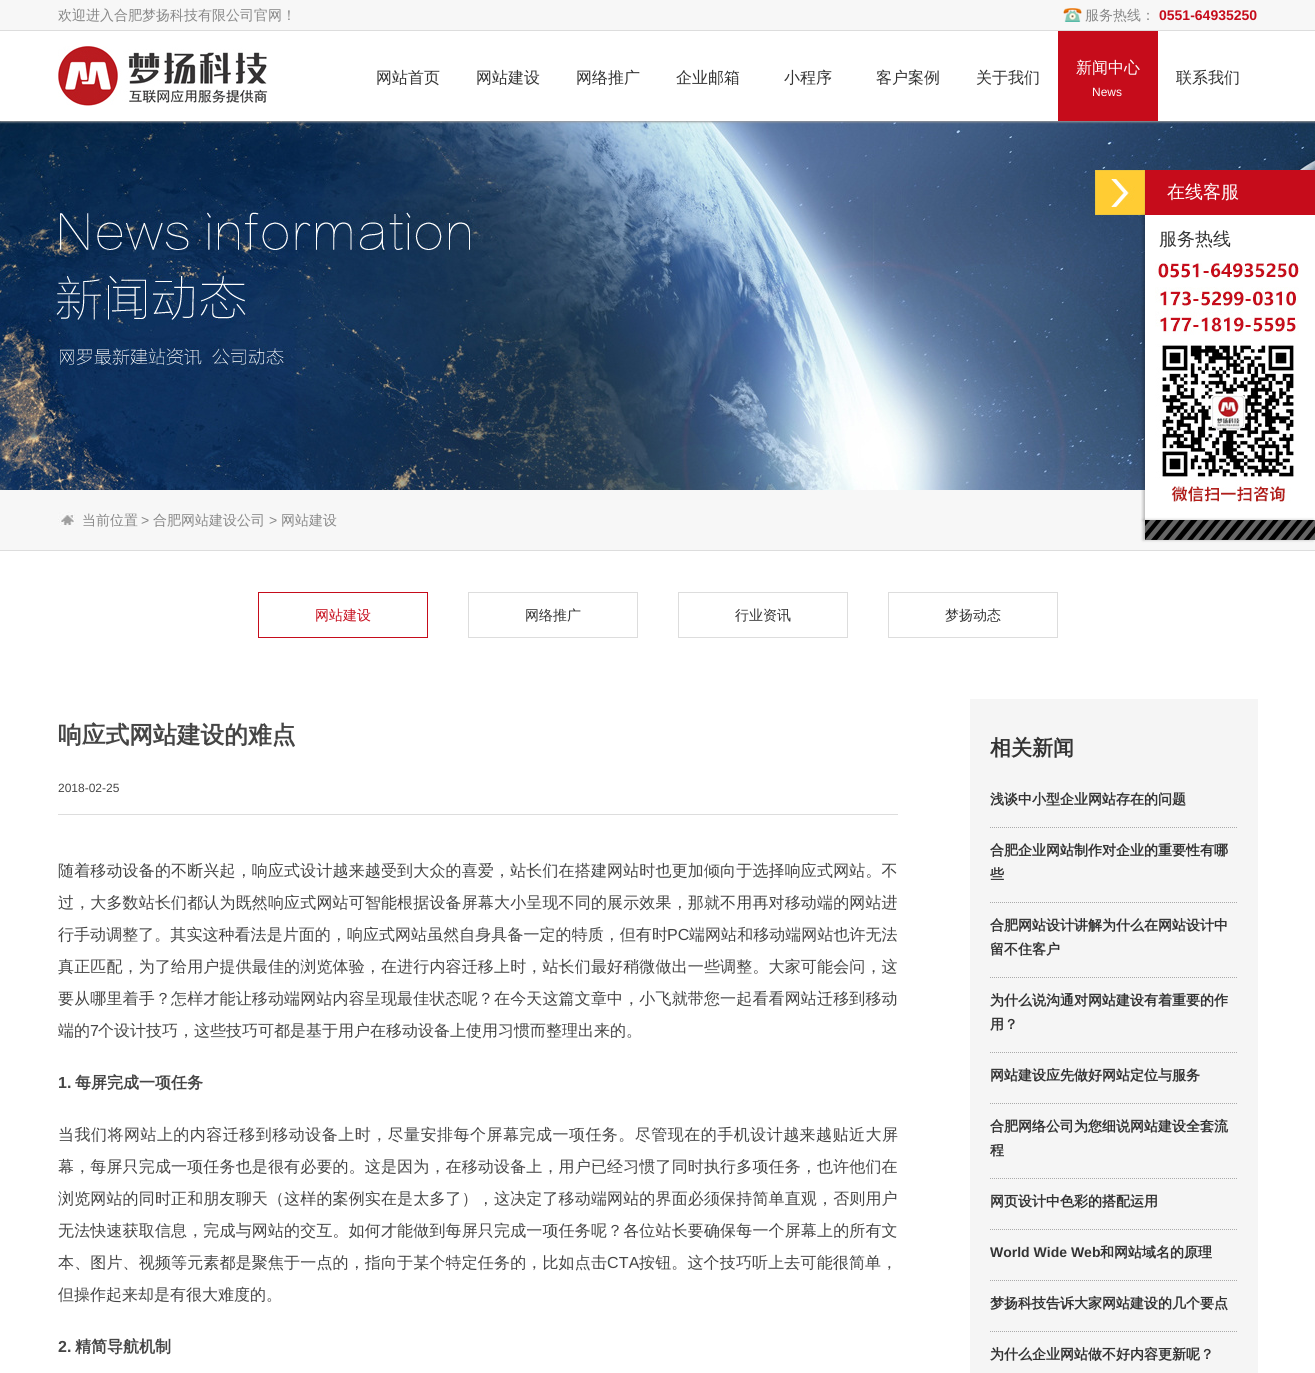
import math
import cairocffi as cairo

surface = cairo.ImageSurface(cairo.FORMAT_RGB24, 1315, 1373)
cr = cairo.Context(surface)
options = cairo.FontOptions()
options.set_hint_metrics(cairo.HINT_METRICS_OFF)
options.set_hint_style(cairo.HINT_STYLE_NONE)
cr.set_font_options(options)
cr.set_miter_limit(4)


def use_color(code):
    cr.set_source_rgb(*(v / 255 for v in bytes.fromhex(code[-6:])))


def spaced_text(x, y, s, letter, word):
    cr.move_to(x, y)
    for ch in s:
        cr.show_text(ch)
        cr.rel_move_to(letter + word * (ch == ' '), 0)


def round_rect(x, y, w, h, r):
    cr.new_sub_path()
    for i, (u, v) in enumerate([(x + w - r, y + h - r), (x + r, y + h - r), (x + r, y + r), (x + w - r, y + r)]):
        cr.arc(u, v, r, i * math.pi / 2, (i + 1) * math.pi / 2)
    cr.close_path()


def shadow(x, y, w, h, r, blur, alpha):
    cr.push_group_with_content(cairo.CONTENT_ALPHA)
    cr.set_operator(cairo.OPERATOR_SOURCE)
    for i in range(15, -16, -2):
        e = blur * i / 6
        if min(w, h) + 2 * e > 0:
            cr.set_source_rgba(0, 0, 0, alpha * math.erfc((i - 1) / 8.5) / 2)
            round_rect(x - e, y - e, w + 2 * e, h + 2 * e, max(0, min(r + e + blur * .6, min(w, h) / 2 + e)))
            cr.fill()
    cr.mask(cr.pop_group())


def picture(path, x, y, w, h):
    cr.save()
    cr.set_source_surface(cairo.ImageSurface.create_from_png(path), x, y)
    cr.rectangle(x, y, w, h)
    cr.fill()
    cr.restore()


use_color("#ffffff")
cr.paint()
picture("img3.png", 0, 121, 1315, 369)
use_color("#999999")
shadow(0, 1, 1315, 121, 0, 1, 1)
use_color("#ffffff")
cr.rectangle(0, 31, 1315, 90)
cr.fill()
use_color("#f7f7f7")
cr.rectangle(0, 0, 1315, 30)
cr.fill()
use_color("#dddddd")
cr.rectangle(0, 30, 1315, 1)
cr.fill()
cr.select_font_face("WenQuanYi Zen Hei Medium")
cr.set_font_size(14)
use_color("#888888")
cr.move_to(58, 20)
cr.show_text("欢迎进入合肥梦扬科技有限公司官网！")
picture("img1.png", 1063, 8, 19, 14)
cr.move_to(1085, 20)
cr.show_text("服务热线：")
cr.select_font_face("Liberation Sans", cairo.FONT_SLANT_NORMAL, cairo.FONT_WEIGHT_BOLD)
use_color("#c60c1b")
cr.move_to(1159, 20)
cr.show_text("0551-64935250")
picture("img2.png", 58, 46, 210, 60)
cr.select_font_face("WenQuanYi Zen Hei Medium")
cr.set_font_size(16)
use_color("#333333")
cr.move_to(376, 83)
cr.show_text("网站首页")
cr.move_to(476, 83)
cr.show_text("网站建设")
cr.move_to(576, 83)
cr.show_text("网络推广")
cr.move_to(676, 83)
cr.show_text("企业邮箱")
cr.move_to(784, 83)
cr.show_text("小程序")
cr.move_to(876, 83)
cr.show_text("客户案例")
cr.move_to(976, 83)
cr.show_text("关于我们")
use_color("#c60c1b")
cr.rectangle(1058, 31, 100, 90)
cr.fill()
use_color("#ffffff")
cr.move_to(1076, 73)
cr.show_text("新闻中心")
cr.select_font_face("Liberation Sans")
cr.set_font_size(12)
cr.move_to(1092, 96)
cr.show_text("News")
cr.select_font_face("WenQuanYi Zen Hei Medium")
cr.set_font_size(16)
use_color("#333333")
cr.move_to(1176, 83)
cr.show_text("联系我们")
use_color("#f7f7f7")
cr.rectangle(0, 490, 1315, 60)
cr.fill()
use_color("#dddddd")
cr.rectangle(0, 550, 1315, 1)
cr.fill()
picture("img4.png", 58, 512, 17, 14)
cr.set_font_size(14)
use_color("#888888")
cr.move_to(82, 525)
cr.show_text("当前位置")
cr.select_font_face("Liberation Sans")
cr.move_to(141, 525)
cr.show_text(">")
cr.select_font_face("WenQuanYi Zen Hei Medium")
cr.move_to(153, 525)
cr.show_text("合肥网站建设公司")
cr.select_font_face("Liberation Sans")
cr.move_to(269, 525)
cr.show_text(">")
cr.select_font_face("WenQuanYi Zen Hei Medium")
cr.move_to(281, 525)
cr.show_text("网站建设")
cr.rectangle(258.5, 592.5, 169, 45)
use_color("#c60c1b")
cr.set_line_width(1)
cr.stroke()
cr.move_to(315, 620)
cr.show_text("网站建设")
cr.rectangle(468.5, 592.5, 169, 45)
use_color("#dddddd")
cr.stroke()
use_color("#333333")
cr.move_to(525, 620)
cr.show_text("网络推广")
cr.rectangle(678.5, 592.5, 169, 45)
use_color("#dddddd")
cr.stroke()
use_color("#333333")
cr.move_to(735, 620)
cr.show_text("行业资讯")
cr.rectangle(888.5, 592.5, 169, 45)
use_color("#dddddd")
cr.stroke()
use_color("#333333")
cr.move_to(945, 620)
cr.show_text("梦扬动态")
use_color("#dddddd")
cr.rectangle(58, 814, 840, 1)
cr.fill()
cr.select_font_face("WenQuanYi Zen Hei", cairo.FONT_SLANT_NORMAL, cairo.FONT_WEIGHT_BOLD)
cr.set_font_size(23.75)
use_color("#454545")
cr.move_to(58, 743)
cr.show_text("响应式网站建设的难点")
cr.select_font_face("Liberation Sans")
cr.set_font_size(12)
cr.move_to(58, 792)
cr.show_text("2018-02-25")
cr.select_font_face("WenQuanYi Zen Hei Medium")
cr.set_font_size(16)
spaced_text(58, 876, "随着移动设备的不断兴起，响应式设计越来越受到大众的喜爱，站长们在搭建网站时也更加倾向于选择响应式网站。不", 0.15, 0)
spaced_text(58, 908, "过，大多数站长们都认为既然响应式网站可智能根据设备屏幕大小呈现不同的展示效果，那就不用再对移动端的网站进", 0.15, 0)
spaced_text(58, 940, "行手动调整了。其实这种看法是片面的，响应式网站虽然自身具备一定的特质，但有时", 0.05, 0)
cr.select_font_face("Liberation Sans")
spaced_text(667, 940, "PC", 0.05, 0)
cr.select_font_face("WenQuanYi Zen Hei Medium")
spaced_text(689, 940, "端网站和移动端网站也许无法", 0.05, 0)
spaced_text(58, 972, "真正匹配，为了给用户提供最佳的浏览体验，在进行内容迁移上时，站长们最好稍微做出一些调整。大家可能会问，这", 0.15, 0)
spaced_text(58, 1004, "要从哪里着手？怎样才能让移动端网站内容呈现最佳状态呢？在今天这篇文章中，小飞就带您一起看看网站迁移到移动", 0.15, 0)
cr.save()
cr.rectangle(58, 679, 1200, 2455)
cr.clip()
cr.move_to(58, 1036)
cr.show_text("端的")
cr.restore()
cr.select_font_face("Liberation Sans")
cr.move_to(90, 1036)
cr.show_text("7")
cr.select_font_face("WenQuanYi Zen Hei Medium")
cr.move_to(98, 1036)
cr.show_text("个设计技巧，这些技巧可都是基于用户在移动设备上使用习惯而整理出来的。")
cr.select_font_face("Liberation Sans", cairo.FONT_SLANT_NORMAL, cairo.FONT_WEIGHT_BOLD)
cr.move_to(58, 1088)
cr.show_text("1.")
cr.select_font_face("WenQuanYi Zen Hei", cairo.FONT_SLANT_NORMAL, cairo.FONT_WEIGHT_BOLD)
cr.move_to(75, 1088)
cr.show_text("每屏完成一项任务")
cr.select_font_face("WenQuanYi Zen Hei Medium")
spaced_text(58, 1140, "当我们将网站上的内容迁移到移动设备上时，尽量安排每个屏幕完成一项任务。尽管现在的手机设计越来越贴近大屏", 0.48, 0)
spaced_text(58, 1172, "幕，每屏只完成一项任务也是很有必要的。这是因为，在移动设备上，用户已经习惯了同时执行多项任务，也许他们在", 0.15, 0)
spaced_text(58, 1204, "浏览网站的同时正和朋友聊天（这样的案例实在是太多了），这决定了移动端网站的界面必须保持简单直观，否则用户", 0.15, 0)
spaced_text(58, 1236, "无法快速获取信息，完成与网站的交互。如何才能做到每屏只完成一项任务呢？各位站长要确保每一个屏幕上的所有文", 0.15, 0)
spaced_text(58, 1268, "本、图片、视频等元素都是聚焦于一点的，指向于某个特定任务的，比如点击", 0.15, 0)
cr.select_font_face("Liberation Sans")
spaced_text(607, 1268, "CTA", 0.15, 0)
cr.select_font_face("WenQuanYi Zen Hei Medium")
spaced_text(639, 1268, "按钮。这个技巧听上去可能很简单，", 0.15, 0)
cr.move_to(58, 1300)
cr.show_text("但操作起来却是有很大难度的。")
cr.select_font_face("Liberation Sans", cairo.FONT_SLANT_NORMAL, cairo.FONT_WEIGHT_BOLD)
cr.move_to(58, 1352)
cr.show_text("2.")
cr.select_font_face("WenQuanYi Zen Hei", cairo.FONT_SLANT_NORMAL, cairo.FONT_WEIGHT_BOLD)
cr.move_to(75, 1352)
cr.show_text("精简导航机制")
use_color("#f5f5f5")
cr.rectangle(970, 699, 288, 674)
cr.fill()
cr.set_font_size(21)
use_color("#333333")
cr.move_to(990, 755)
cr.show_text("相关新闻")
cr.new_path()
cr.move_to(990, 827.5)
cr.line_to(1238, 827.5)
use_color("#aaaaaa")
cr.set_dash([1, 1])
cr.stroke()
cr.set_font_size(14)
use_color("#333333")
cr.move_to(990, 804)
cr.show_text("浅谈中小型企业网站存在的问题")
cr.new_path()
cr.move_to(990, 902.5)
cr.line_to(1238, 902.5)
use_color("#aaaaaa")
cr.stroke()
use_color("#333333")
cr.move_to(990, 855)
cr.show_text("合肥企业网站制作对企业的重要性有哪")
cr.move_to(990, 879)
cr.show_text("些")
cr.new_path()
cr.move_to(990, 977.5)
cr.line_to(1238, 977.5)
use_color("#aaaaaa")
cr.stroke()
use_color("#333333")
cr.move_to(990, 930)
cr.show_text("合肥网站设计讲解为什么在网站设计中")
cr.move_to(990, 954)
cr.show_text("留不住客户")
cr.new_path()
cr.move_to(990, 1052.5)
cr.line_to(1238, 1052.5)
use_color("#aaaaaa")
cr.stroke()
use_color("#333333")
cr.move_to(990, 1005)
cr.show_text("为什么说沟通对网站建设有着重要的作")
cr.move_to(990, 1029)
cr.show_text("用？")
cr.new_path()
cr.move_to(990, 1103.5)
cr.line_to(1238, 1103.5)
use_color("#aaaaaa")
cr.stroke()
use_color("#333333")
cr.move_to(990, 1080)
cr.show_text("网站建设应先做好网站定位与服务")
cr.new_path()
cr.move_to(990, 1178.5)
cr.line_to(1238, 1178.5)
use_color("#aaaaaa")
cr.stroke()
use_color("#333333")
cr.move_to(990, 1131)
cr.show_text("合肥网络公司为您细说网站建设全套流")
cr.move_to(990, 1155)
cr.show_text("程")
cr.new_path()
cr.move_to(990, 1229.5)
cr.line_to(1238, 1229.5)
use_color("#aaaaaa")
cr.stroke()
use_color("#333333")
cr.move_to(990, 1206)
cr.show_text("网页设计中色彩的搭配运用")
cr.new_path()
cr.move_to(990, 1280.5)
cr.line_to(1238, 1280.5)
use_color("#aaaaaa")
cr.stroke()
cr.select_font_face("Liberation Sans", cairo.FONT_SLANT_NORMAL, cairo.FONT_WEIGHT_BOLD)
use_color("#333333")
cr.move_to(990, 1257)
cr.show_text("World Wide Web")
cr.select_font_face("WenQuanYi Zen Hei", cairo.FONT_SLANT_NORMAL, cairo.FONT_WEIGHT_BOLD)
cr.move_to(1100, 1257)
cr.show_text("和网站域名的原理")
cr.new_path()
cr.move_to(990, 1331.5)
cr.line_to(1238, 1331.5)
use_color("#aaaaaa")
cr.stroke()
use_color("#333333")
cr.move_to(990, 1308)
cr.show_text("梦扬科技告诉大家网站建设的几个要点")
cr.move_to(990, 1359)
cr.show_text("为什么企业网站做不好内容更新呢？")
picture("img5.png", 1095, 170, 50, 45)
use_color("#ffffff")
cr.rectangle(1145, 215, 170, 305)
cr.fill()
cr.save()
cr.rectangle(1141, 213, 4, 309)
cr.clip()
use_color("#000000")
shadow(1143, 215, 170, 305, 0, 1.5, 0.25)
cr.restore()
use_color("#c60c1b")
cr.rectangle(1145, 170, 170, 45)
cr.fill()
cr.select_font_face("WenQuanYi Zen Hei Medium")
cr.set_font_size(18)
use_color("#ffffff")
cr.move_to(1167, 198)
cr.show_text("在线客服")
use_color("#333333")
cr.move_to(1159, 245)
cr.show_text("服务热线")
picture("img6.png", 1155, 263, 144, 240)
use_color("#000000")
shadow(1143, 520, 170, 20, 0, 1.5, 0.25)
picture("img7.png", 1145, 520, 170, 20)
surface.write_to_png("result.png")
